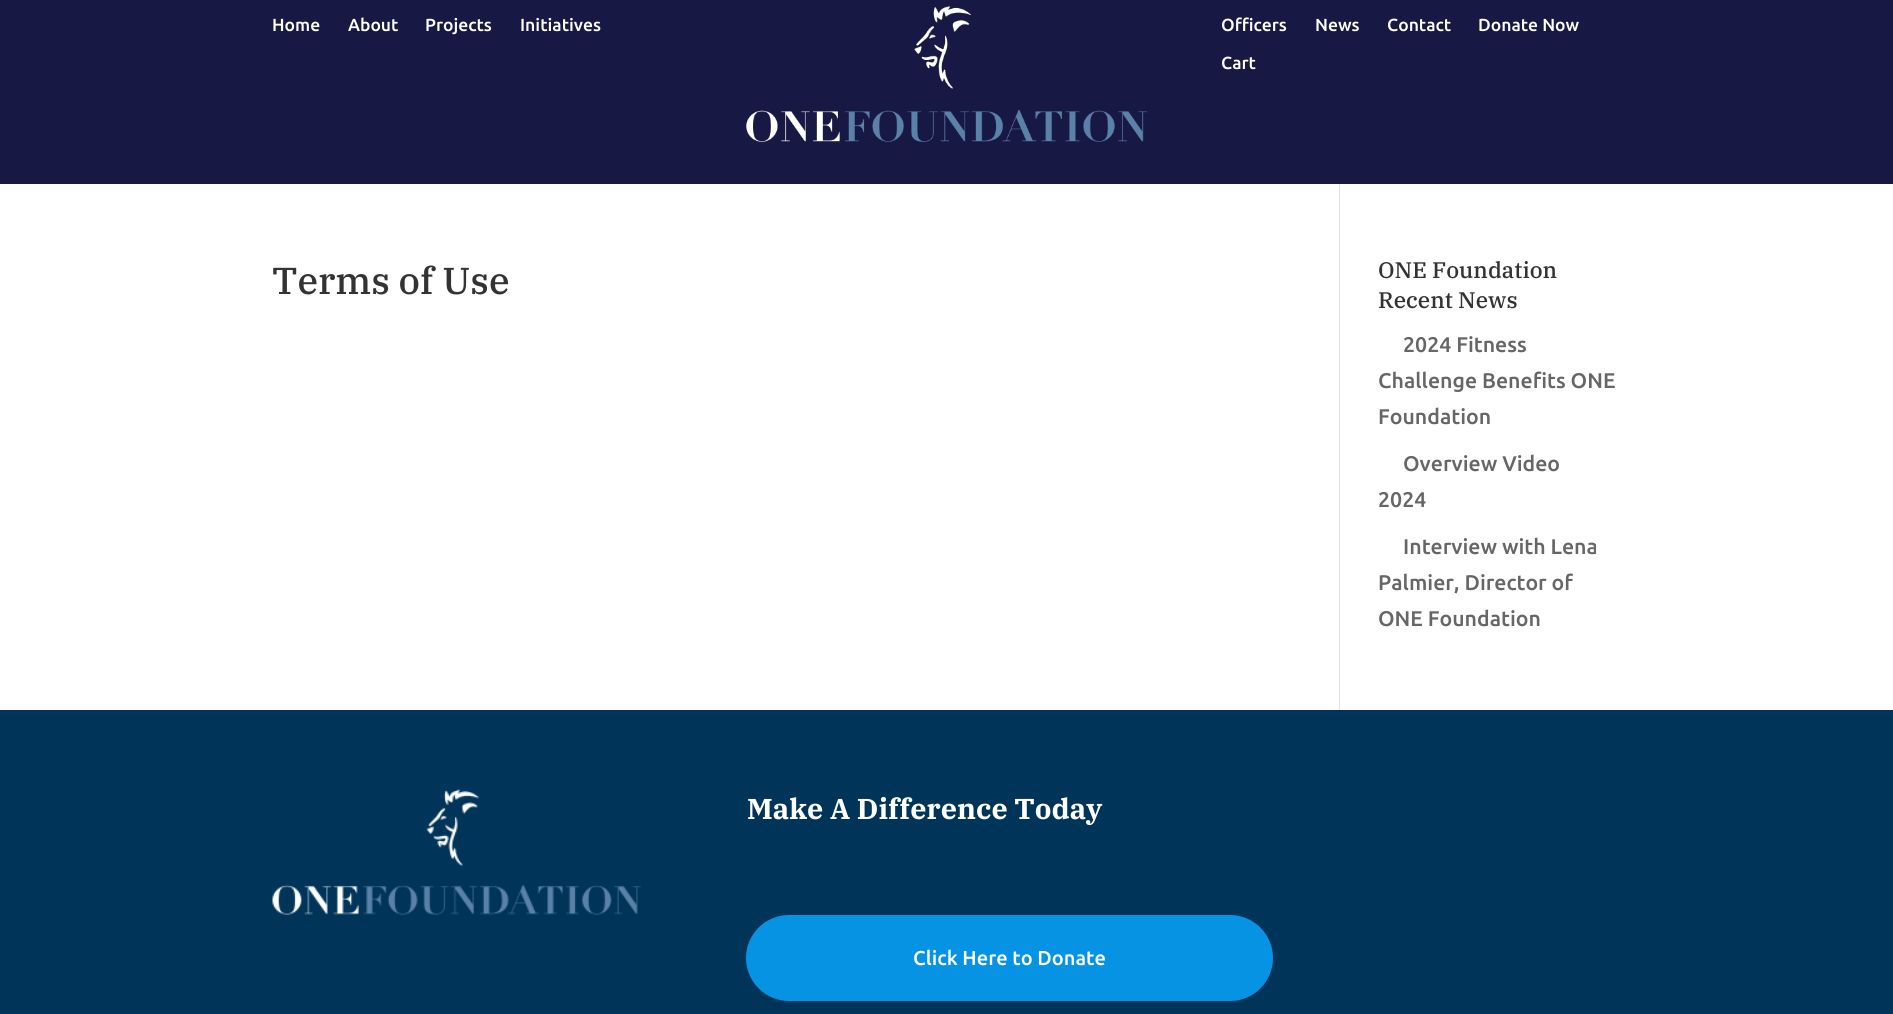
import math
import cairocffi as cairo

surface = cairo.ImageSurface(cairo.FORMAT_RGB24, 1893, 1014)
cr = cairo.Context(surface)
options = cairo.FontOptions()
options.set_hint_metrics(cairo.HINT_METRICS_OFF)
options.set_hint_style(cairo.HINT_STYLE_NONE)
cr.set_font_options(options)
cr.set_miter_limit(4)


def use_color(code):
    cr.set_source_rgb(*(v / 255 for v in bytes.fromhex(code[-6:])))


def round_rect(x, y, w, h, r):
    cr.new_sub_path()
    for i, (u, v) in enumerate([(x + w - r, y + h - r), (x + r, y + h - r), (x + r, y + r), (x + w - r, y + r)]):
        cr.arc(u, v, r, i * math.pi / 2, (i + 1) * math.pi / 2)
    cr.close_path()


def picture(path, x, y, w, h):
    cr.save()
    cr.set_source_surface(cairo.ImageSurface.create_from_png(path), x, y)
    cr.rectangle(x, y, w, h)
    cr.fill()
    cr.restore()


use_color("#ffffff")
cr.paint()
use_color("#181845")
cr.rectangle(0, 0, 1893, 184)
cr.fill()
cr.select_font_face("Ubuntu Medium")
cr.set_font_size(17.5)
use_color("#ffffff")
cr.move_to(272, 31)
cr.show_text("Home")
cr.move_to(348, 31)
cr.show_text("About")
cr.move_to(425, 31)
cr.show_text("Projects")
cr.move_to(520, 31)
cr.show_text("Initiatives")
picture("img1.png", 746, 6, 401, 137)
cr.move_to(1221, 31)
cr.show_text("Officers")
cr.move_to(1315, 31)
cr.show_text("News")
cr.move_to(1387, 31)
cr.show_text("Contact")
cr.move_to(1478, 31)
cr.show_text("Donate Now")
cr.move_to(1221, 69)
cr.show_text("Cart")
use_color("#e2e2e2")
cr.rectangle(1339, 184, 1, 526)
cr.fill()
cr.select_font_face("IBM Plex Serif Medium")
cr.set_font_size(37.5)
use_color("#333333")
cr.move_to(272, 294)
cr.show_text("Terms of Use")
cr.set_font_size(22.5)
cr.move_to(1378, 278)
cr.show_text("ONE Foundation")
cr.move_to(1378, 308)
cr.show_text("Recent News")
cr.select_font_face("Ubuntu Medium")
cr.set_font_size(21.25)
use_color("#666666")
cr.move_to(1403, 352)
cr.show_text("2024 Fitness")
cr.move_to(1378, 388)
cr.show_text("Challenge Benefits ONE")
cr.move_to(1378, 424)
cr.show_text("Foundation")
cr.move_to(1403, 471)
cr.show_text("Overview Video")
cr.move_to(1378, 507)
cr.show_text("2024")
cr.move_to(1403, 554)
cr.show_text("Interview with Lena")
cr.move_to(1378, 590)
cr.show_text("Palmier, Director of")
cr.move_to(1378, 626)
cr.show_text("ONE Foundation")
use_color("#003459")
cr.rectangle(0, 710, 1893, 304)
cr.fill()
picture("img2.png", 272, 789, 369, 126)
cr.select_font_face("IBM Plex Serif", cairo.FONT_SLANT_NORMAL, cairo.FONT_WEIGHT_BOLD)
cr.set_font_size(28.75)
use_color("#ffffff")
cr.move_to(747, 819)
cr.show_text("Make A Difference Today")
use_color("#0693e3")
round_rect(746, 915, 527, 86, 43)
cr.fill()
cr.select_font_face("Ubuntu Medium")
cr.set_font_size(20)
use_color("#ffffff")
cr.move_to(913, 965)
cr.show_text("Click Here to Donate")
surface.write_to_png("result.png")
